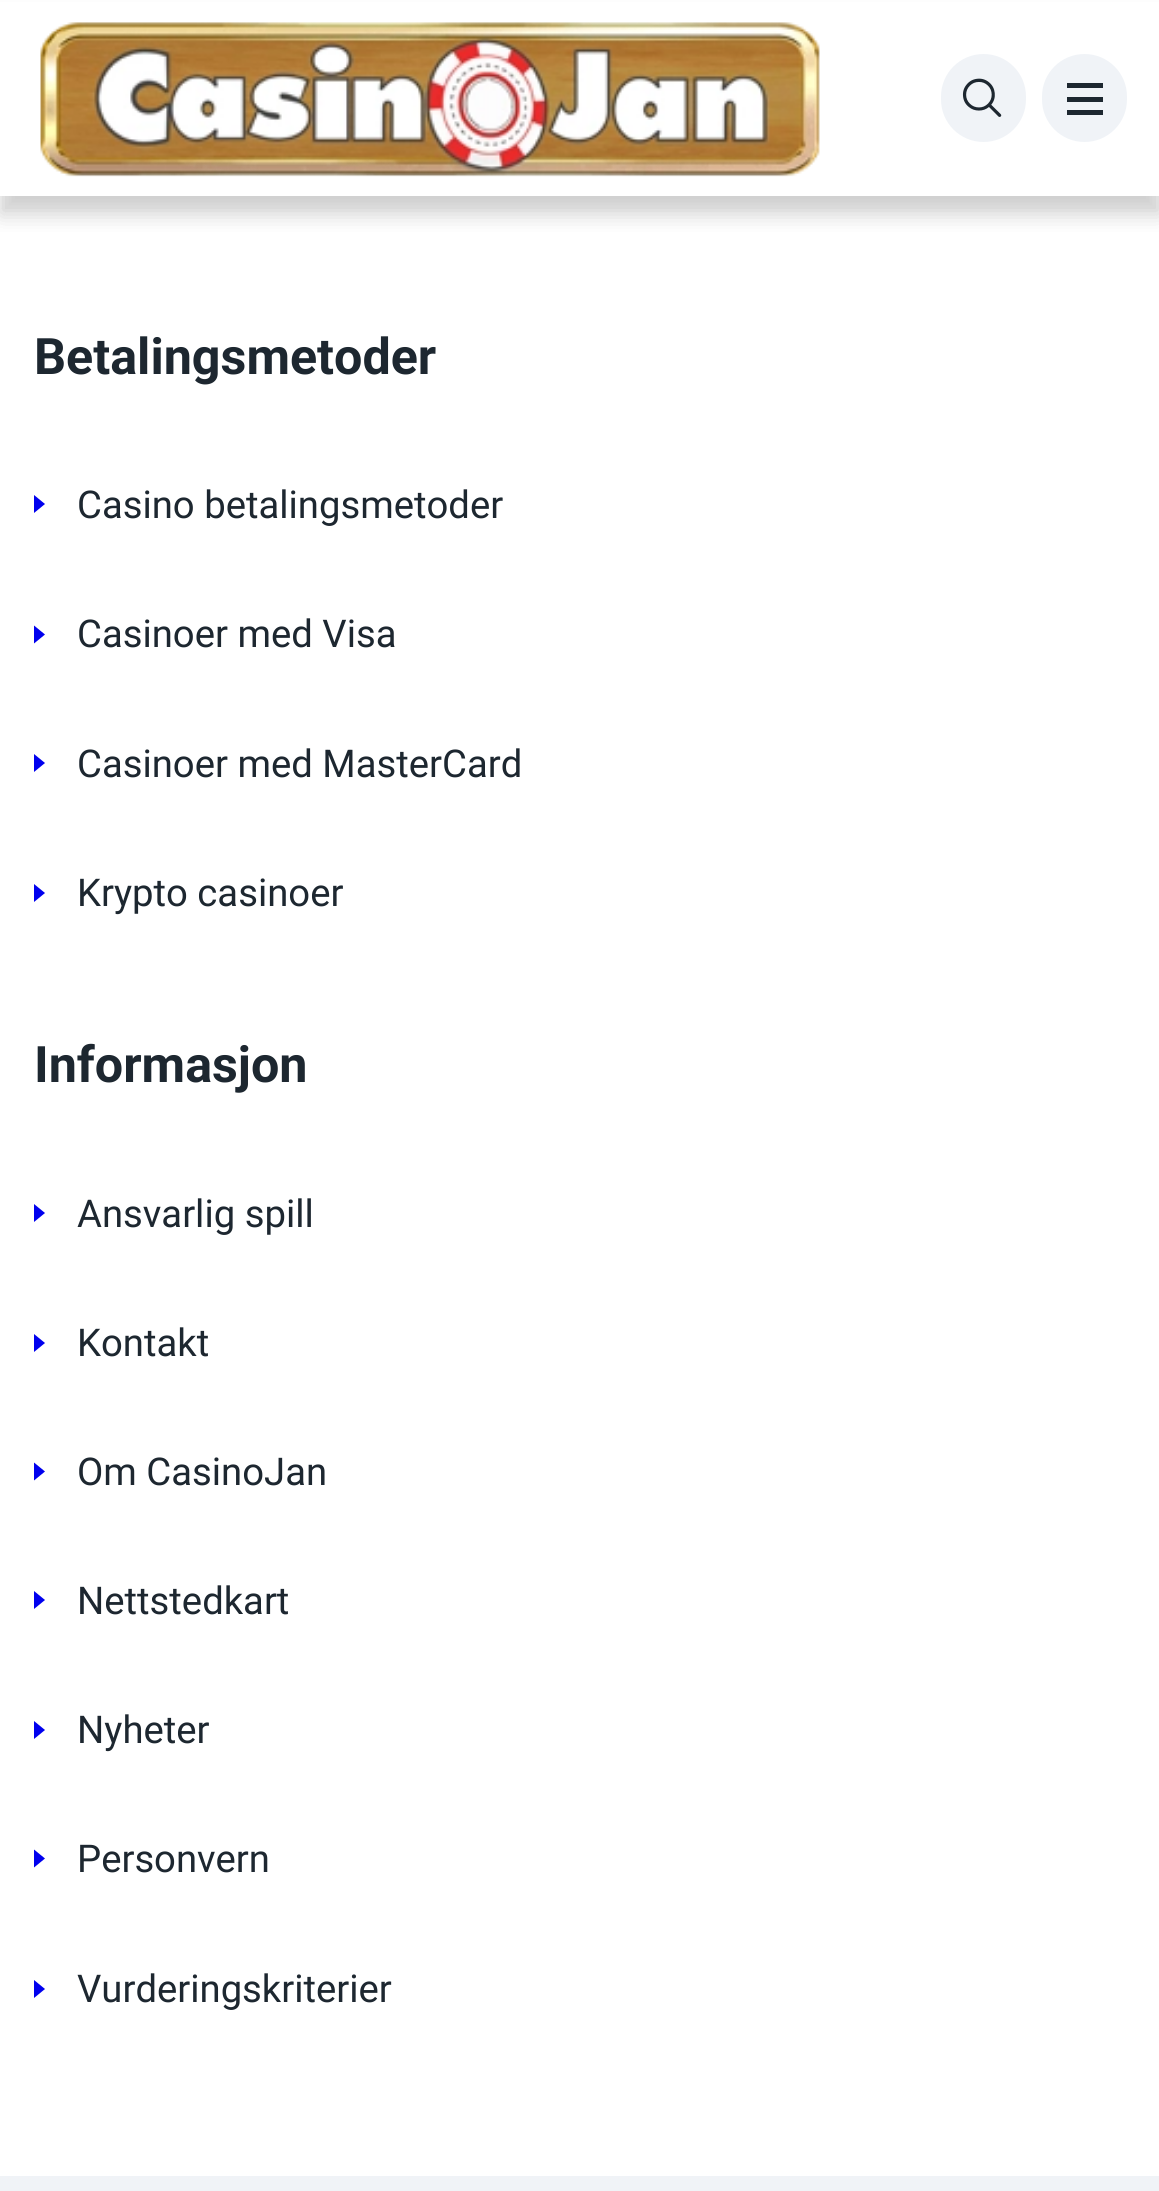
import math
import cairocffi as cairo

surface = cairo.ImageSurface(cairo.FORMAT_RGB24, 1159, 2191)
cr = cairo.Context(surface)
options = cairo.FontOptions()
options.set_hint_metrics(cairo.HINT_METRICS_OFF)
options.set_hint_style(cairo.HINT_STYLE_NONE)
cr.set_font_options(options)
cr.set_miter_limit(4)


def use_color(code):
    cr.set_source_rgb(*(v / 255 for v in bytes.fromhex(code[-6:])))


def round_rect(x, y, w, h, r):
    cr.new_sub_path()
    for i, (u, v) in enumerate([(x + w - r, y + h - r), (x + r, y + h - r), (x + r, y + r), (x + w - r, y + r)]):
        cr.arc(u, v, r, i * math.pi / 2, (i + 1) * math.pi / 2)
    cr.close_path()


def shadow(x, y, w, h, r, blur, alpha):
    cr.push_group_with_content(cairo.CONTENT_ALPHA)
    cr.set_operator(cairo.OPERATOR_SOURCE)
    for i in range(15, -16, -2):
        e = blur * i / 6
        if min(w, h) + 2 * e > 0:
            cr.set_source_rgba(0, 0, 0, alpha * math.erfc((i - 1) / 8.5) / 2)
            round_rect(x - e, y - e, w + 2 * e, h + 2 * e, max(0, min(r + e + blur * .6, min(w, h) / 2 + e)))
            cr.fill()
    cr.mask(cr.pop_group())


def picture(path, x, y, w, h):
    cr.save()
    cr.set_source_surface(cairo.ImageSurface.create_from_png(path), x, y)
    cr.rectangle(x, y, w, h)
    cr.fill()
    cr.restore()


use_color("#ffffff")
cr.paint()
use_color("#000000")
shadow(0, 18, 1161, 196, 0, 10, 0.1)
shadow(0, 18, 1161, 196, 0, 10, 0.1)
use_color("#ffffff")
cr.rectangle(0, 2, 1159, 194)
cr.fill()
picture("img1.png", 40, 22, 780, 155)
use_color("#f0f3f7")
round_rect(941, 54, 85, 88, 42.5)
cr.fill()
picture("img2.png", 962, 78, 40, 39)
round_rect(1042, 54, 85, 88, 42.5)
cr.fill()
use_color("#1d2730")
cr.rectangle(1067, 83, 36, 5)
cr.fill()
cr.rectangle(1067, 97, 36, 5)
cr.fill()
cr.rectangle(1067, 110, 36, 5)
cr.fill()
cr.select_font_face("Roboto", cairo.FONT_SLANT_NORMAL, cairo.FONT_WEIGHT_BOLD)
cr.set_font_size(50.25)
cr.move_to(34, 374)
cr.show_text("Betalingsmetoder")
use_color("#0000ee")
cr.new_path()
cr.move_to(34, 513)
cr.line_to(34, 495)
cr.line_to(45, 504)
cr.close_path()
cr.fill()
cr.select_font_face("Roboto")
cr.set_font_size(38.25)
use_color("#1d2730")
cr.move_to(77, 518)
cr.show_text("Casino betalingsmetoder")
use_color("#0000ee")
cr.new_path()
cr.move_to(34, 643.5)
cr.line_to(34, 625.5)
cr.line_to(45, 634.5)
cr.close_path()
cr.fill()
use_color("#1d2730")
cr.move_to(77, 647)
cr.show_text("Casinoer med Visa")
use_color("#0000ee")
cr.new_path()
cr.move_to(34, 772)
cr.line_to(34, 754)
cr.line_to(45, 763)
cr.close_path()
cr.fill()
use_color("#1d2730")
cr.move_to(77, 777)
cr.show_text("Casinoer med MasterCard")
use_color("#0000ee")
cr.new_path()
cr.move_to(34, 902)
cr.line_to(34, 884)
cr.line_to(45, 893)
cr.close_path()
cr.fill()
use_color("#1d2730")
cr.move_to(77, 906)
cr.show_text("Krypto casinoer")
cr.select_font_face("Roboto", cairo.FONT_SLANT_NORMAL, cairo.FONT_WEIGHT_BOLD)
cr.set_font_size(50.25)
cr.move_to(34, 1082)
cr.show_text("Informasjon")
use_color("#0000ee")
cr.new_path()
cr.move_to(34, 1222)
cr.line_to(34, 1204)
cr.line_to(45, 1213)
cr.close_path()
cr.fill()
cr.select_font_face("Roboto")
cr.set_font_size(38.25)
use_color("#1d2730")
cr.move_to(77, 1227)
cr.show_text("Ansvarlig spill")
use_color("#0000ee")
cr.new_path()
cr.move_to(34, 1352)
cr.line_to(34, 1334)
cr.line_to(45, 1343)
cr.close_path()
cr.fill()
use_color("#1d2730")
cr.move_to(77, 1356)
cr.show_text("Kontakt")
use_color("#0000ee")
cr.new_path()
cr.move_to(34, 1480.5)
cr.line_to(34, 1462.5)
cr.line_to(45, 1471.5)
cr.close_path()
cr.fill()
use_color("#1d2730")
cr.move_to(77, 1485)
cr.show_text("Om CasinoJan")
use_color("#0000ee")
cr.new_path()
cr.move_to(34, 1609)
cr.line_to(34, 1591)
cr.line_to(45, 1600)
cr.close_path()
cr.fill()
use_color("#1d2730")
cr.move_to(77, 1614)
cr.show_text("Nettstedkart")
use_color("#0000ee")
cr.new_path()
cr.move_to(34, 1739)
cr.line_to(34, 1721)
cr.line_to(45, 1730)
cr.close_path()
cr.fill()
use_color("#1d2730")
cr.move_to(77, 1743)
cr.show_text("Nyheter")
use_color("#0000ee")
cr.new_path()
cr.move_to(34, 1867.5)
cr.line_to(34, 1849.5)
cr.line_to(45, 1858.5)
cr.close_path()
cr.fill()
use_color("#1d2730")
cr.move_to(77, 1872)
cr.show_text("Personvern")
use_color("#0000ee")
cr.new_path()
cr.move_to(34, 1998)
cr.line_to(34, 1980)
cr.line_to(45, 1989)
cr.close_path()
cr.fill()
use_color("#1d2730")
cr.move_to(77, 2002)
cr.show_text("Vurderingskriterier")
use_color("#f0f3f7")
cr.rectangle(0, 2176, 1159, 15)
cr.fill()
surface.write_to_png("result.png")
